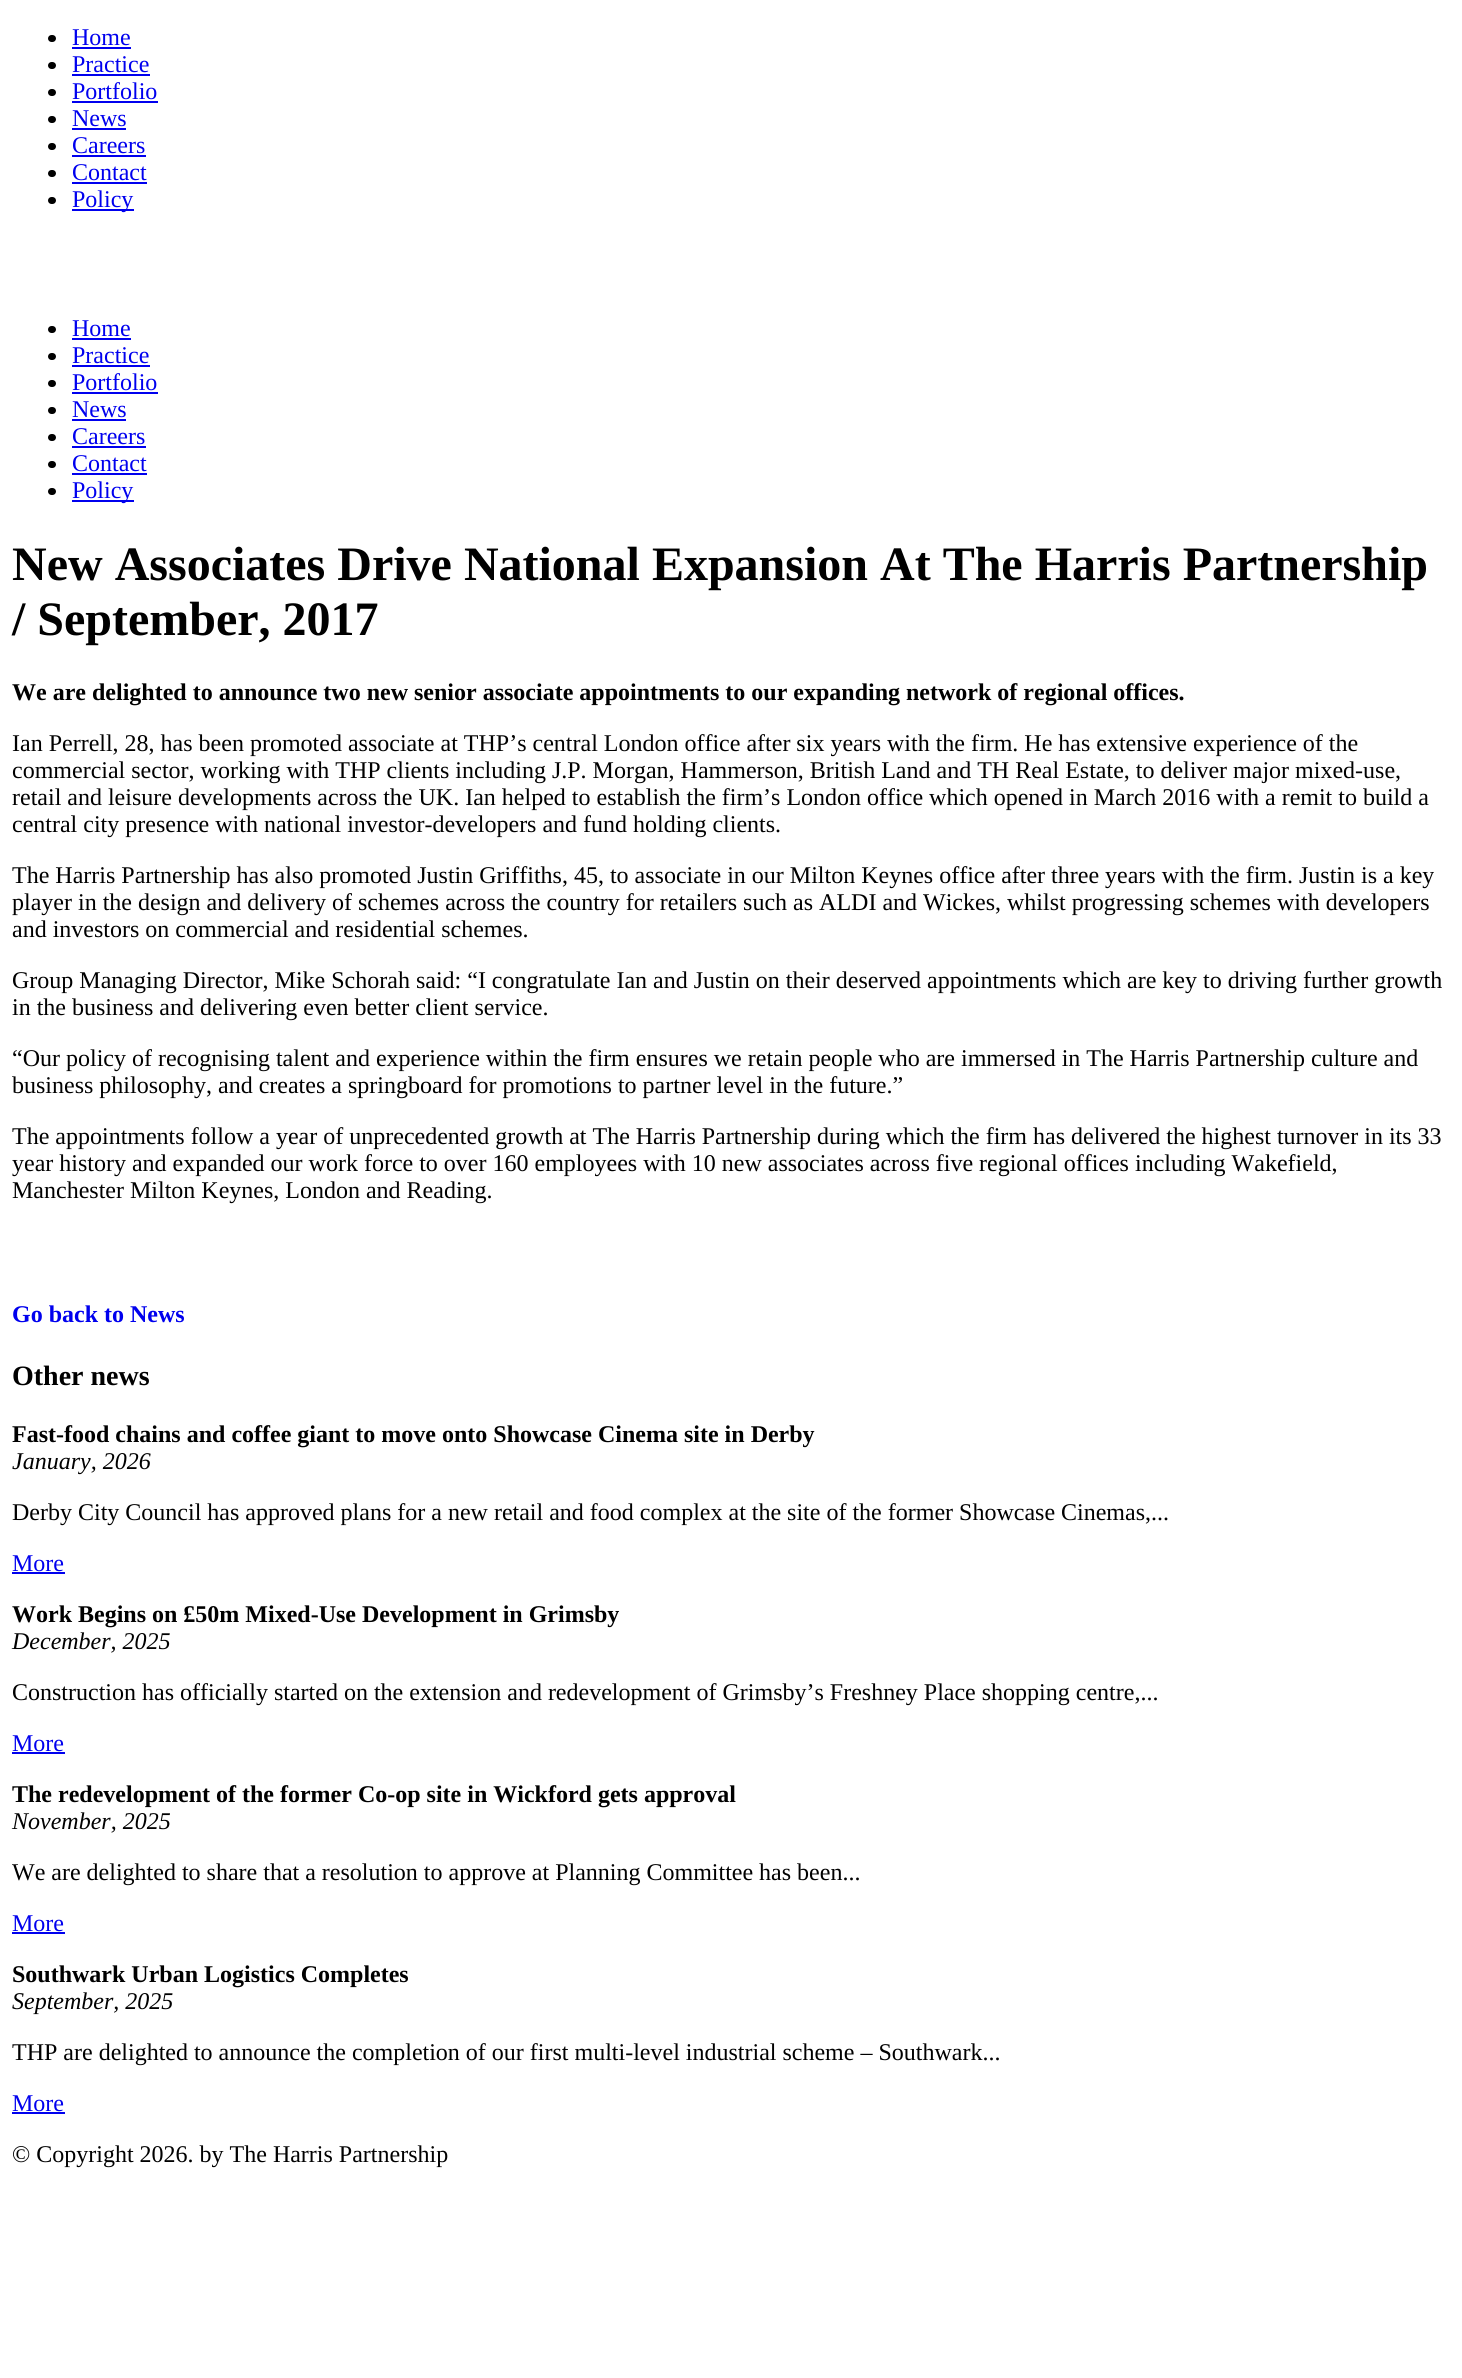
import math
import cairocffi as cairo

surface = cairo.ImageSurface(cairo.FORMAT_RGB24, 1462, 2378)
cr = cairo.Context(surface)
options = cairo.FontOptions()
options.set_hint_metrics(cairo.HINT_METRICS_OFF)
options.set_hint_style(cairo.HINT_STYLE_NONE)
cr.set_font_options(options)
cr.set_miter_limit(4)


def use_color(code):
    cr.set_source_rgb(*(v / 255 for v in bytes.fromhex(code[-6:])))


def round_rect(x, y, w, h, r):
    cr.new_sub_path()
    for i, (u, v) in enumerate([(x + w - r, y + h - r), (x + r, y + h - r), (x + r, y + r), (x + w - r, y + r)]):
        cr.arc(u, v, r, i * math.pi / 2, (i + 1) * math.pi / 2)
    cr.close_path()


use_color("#ffffff")
cr.paint()
use_color("#000000")
round_rect(48, 35, 8, 7, 3.5)
cr.fill()
cr.select_font_face("Liberation Serif")
cr.set_font_size(24)
use_color("#0000ee")
cr.move_to(72, 45)
cr.show_text("Home")
cr.rectangle(72, 47, 59, 2)
cr.fill()
use_color("#000000")
round_rect(48, 62, 8, 7, 3.5)
cr.fill()
use_color("#0000ee")
cr.move_to(72, 72)
cr.show_text("Practice")
cr.rectangle(72, 74, 78, 2)
cr.fill()
use_color("#000000")
round_rect(48, 89, 8, 7, 3.5)
cr.fill()
use_color("#0000ee")
cr.move_to(72, 99)
cr.show_text("Portfolio")
cr.rectangle(72, 101, 86, 2)
cr.fill()
use_color("#000000")
round_rect(48, 116, 8, 7, 3.5)
cr.fill()
use_color("#0000ee")
cr.move_to(72, 126)
cr.show_text("News")
cr.rectangle(72, 128, 54, 2)
cr.fill()
use_color("#000000")
round_rect(48, 143, 8, 7, 3.5)
cr.fill()
use_color("#0000ee")
cr.move_to(72, 153)
cr.show_text("Careers")
cr.rectangle(72, 155, 74, 2)
cr.fill()
use_color("#000000")
round_rect(48, 170, 8, 7, 3.5)
cr.fill()
use_color("#0000ee")
cr.move_to(72, 180)
cr.show_text("Contact")
cr.rectangle(72, 182, 75, 2)
cr.fill()
use_color("#000000")
round_rect(48, 197, 8, 7, 3.5)
cr.fill()
use_color("#0000ee")
cr.rectangle(72, 209, 62, 2)
cr.fill()
cr.move_to(72, 207)
cr.show_text("Policy")
use_color("#000000")
round_rect(48, 326, 8, 7, 3.5)
cr.fill()
use_color("#0000ee")
cr.move_to(72, 336)
cr.show_text("Home")
cr.rectangle(72, 338, 59, 2)
cr.fill()
use_color("#000000")
round_rect(48, 353, 8, 7, 3.5)
cr.fill()
use_color("#0000ee")
cr.move_to(72, 363)
cr.show_text("Practice")
cr.rectangle(72, 365, 78, 2)
cr.fill()
use_color("#000000")
round_rect(48, 380, 8, 7, 3.5)
cr.fill()
use_color("#0000ee")
cr.move_to(72, 390)
cr.show_text("Portfolio")
cr.rectangle(72, 392, 86, 2)
cr.fill()
use_color("#000000")
round_rect(48, 407, 8, 7, 3.5)
cr.fill()
use_color("#0000ee")
cr.move_to(72, 417)
cr.show_text("News")
cr.rectangle(72, 419, 54, 2)
cr.fill()
use_color("#000000")
round_rect(48, 434, 8, 7, 3.5)
cr.fill()
use_color("#0000ee")
cr.move_to(72, 444)
cr.show_text("Careers")
cr.rectangle(72, 446, 74, 2)
cr.fill()
use_color("#000000")
round_rect(48, 461, 8, 7, 3.5)
cr.fill()
use_color("#0000ee")
cr.move_to(72, 471)
cr.show_text("Contact")
cr.rectangle(72, 473, 75, 2)
cr.fill()
use_color("#000000")
round_rect(48, 488, 8, 7, 3.5)
cr.fill()
use_color("#0000ee")
cr.rectangle(72, 500, 62, 2)
cr.fill()
cr.move_to(72, 498)
cr.show_text("Policy")
cr.select_font_face("Liberation Serif", cairo.FONT_SLANT_NORMAL, cairo.FONT_WEIGHT_BOLD)
cr.set_font_size(48)
use_color("#000000")
cr.move_to(12, 580)
cr.show_text("New Associates Drive National Expansion At The Harris Partnership")
cr.move_to(12, 635)
cr.show_text("/ September, 2017")
cr.set_font_size(24)
cr.move_to(12, 700)
cr.show_text("We are delighted to announce two new senior associate appointments to our expanding network of regional offices.")
cr.select_font_face("Liberation Serif")
cr.move_to(12, 751)
cr.show_text("Ian Perrell, 28, has been promoted associate at THP’s central London office after six years with the firm. He has extensive experience of the")
cr.move_to(12, 778)
cr.show_text("commercial sector, working with THP clients including J.P. Morgan, Hammerson, British Land and TH Real Estate, to deliver major mixed-use,")
cr.move_to(12, 805)
cr.show_text("retail and leisure developments across the UK. Ian helped to establish the firm’s London office which opened in March 2016 with a remit to build a")
cr.move_to(12, 832)
cr.show_text("central city presence with national investor-developers and fund holding clients.")
cr.move_to(12, 883)
cr.show_text("The Harris Partnership has also promoted Justin Griffiths, 45, to associate in our Milton Keynes office after three years with the firm. Justin is a key")
cr.move_to(12, 910)
cr.show_text("player in the design and delivery of schemes across the country for retailers such as ALDI and Wickes, whilst progressing schemes with developers")
cr.move_to(12, 937)
cr.show_text("and investors on commercial and residential schemes.")
cr.move_to(12, 988)
cr.show_text("Group Managing Director, Mike Schorah said: “I congratulate Ian and Justin on their deserved appointments which are key to driving further growth")
cr.move_to(12, 1015)
cr.show_text("in the business and delivering even better client service.")
cr.move_to(12, 1066)
cr.show_text("“Our policy of recognising talent and experience within the firm ensures we retain people who are immersed in The Harris Partnership culture and")
cr.move_to(12, 1093)
cr.show_text("business philosophy, and creates a springboard for promotions to partner level in the future.”")
cr.move_to(12, 1144)
cr.show_text("The appointments follow a year of unprecedented growth at The Harris Partnership during which the firm has delivered the highest turnover in its 33")
cr.move_to(12, 1171)
cr.show_text("year history and expanded our work force to over 160 employees with 10 new associates across five regional offices including Wakefield,")
cr.move_to(12, 1198)
cr.show_text("Manchester Milton Keynes, London and Reading.")
cr.select_font_face("Liberation Serif", cairo.FONT_SLANT_NORMAL, cairo.FONT_WEIGHT_BOLD)
use_color("#0000ee")
cr.move_to(12, 1322)
cr.show_text("Go back to News")
cr.set_font_size(28)
use_color("#000000")
cr.move_to(12, 1385)
cr.show_text("Other news")
cr.set_font_size(24)
cr.move_to(12, 1442)
cr.show_text("Fast-food chains and coffee giant to move onto Showcase Cinema site in Derby")
cr.select_font_face("Liberation Serif", cairo.FONT_SLANT_ITALIC)
cr.move_to(12, 1469)
cr.show_text("January, 2026")
cr.select_font_face("Liberation Serif")
cr.move_to(12, 1520)
cr.show_text("Derby City Council has approved plans for a new retail and food complex at the site of the former Showcase Cinemas,...")
use_color("#0000ee")
cr.move_to(12, 1571)
cr.show_text("More")
cr.rectangle(12, 1572, 53, 2)
cr.fill()
cr.select_font_face("Liberation Serif", cairo.FONT_SLANT_NORMAL, cairo.FONT_WEIGHT_BOLD)
use_color("#000000")
cr.move_to(12, 1622)
cr.show_text("Work Begins on £50m Mixed-Use Development in Grimsby")
cr.select_font_face("Liberation Serif", cairo.FONT_SLANT_ITALIC)
cr.move_to(12, 1649)
cr.show_text("December, 2025")
cr.select_font_face("Liberation Serif")
cr.move_to(12, 1700)
cr.show_text("Construction has officially started on the extension and redevelopment of Grimsby’s Freshney Place shopping centre,...")
use_color("#0000ee")
cr.move_to(12, 1751)
cr.show_text("More")
cr.rectangle(12, 1752, 53, 2)
cr.fill()
cr.select_font_face("Liberation Serif", cairo.FONT_SLANT_NORMAL, cairo.FONT_WEIGHT_BOLD)
use_color("#000000")
cr.move_to(12, 1802)
cr.show_text("The redevelopment of the former Co-op site in Wickford gets approval")
cr.select_font_face("Liberation Serif", cairo.FONT_SLANT_ITALIC)
cr.move_to(12, 1829)
cr.show_text("November, 2025")
cr.select_font_face("Liberation Serif")
cr.move_to(12, 1880)
cr.show_text("We are delighted to share that a resolution to approve at Planning Committee has been...")
use_color("#0000ee")
cr.move_to(12, 1931)
cr.show_text("More")
cr.rectangle(12, 1932, 53, 2)
cr.fill()
cr.select_font_face("Liberation Serif", cairo.FONT_SLANT_NORMAL, cairo.FONT_WEIGHT_BOLD)
use_color("#000000")
cr.move_to(12, 1982)
cr.show_text("Southwark Urban Logistics Completes")
cr.select_font_face("Liberation Serif", cairo.FONT_SLANT_ITALIC)
cr.move_to(12, 2009)
cr.show_text("September, 2025")
cr.select_font_face("Liberation Serif")
cr.move_to(12, 2060)
cr.show_text("THP are delighted to announce the completion of our first multi-level industrial scheme – Southwark...")
use_color("#0000ee")
cr.move_to(12, 2111)
cr.show_text("More")
cr.rectangle(12, 2112, 53, 2)
cr.fill()
use_color("#000000")
cr.move_to(12, 2162)
cr.show_text("© Copyright 2026. by The Harris Partnership")
surface.write_to_png("result.png")
